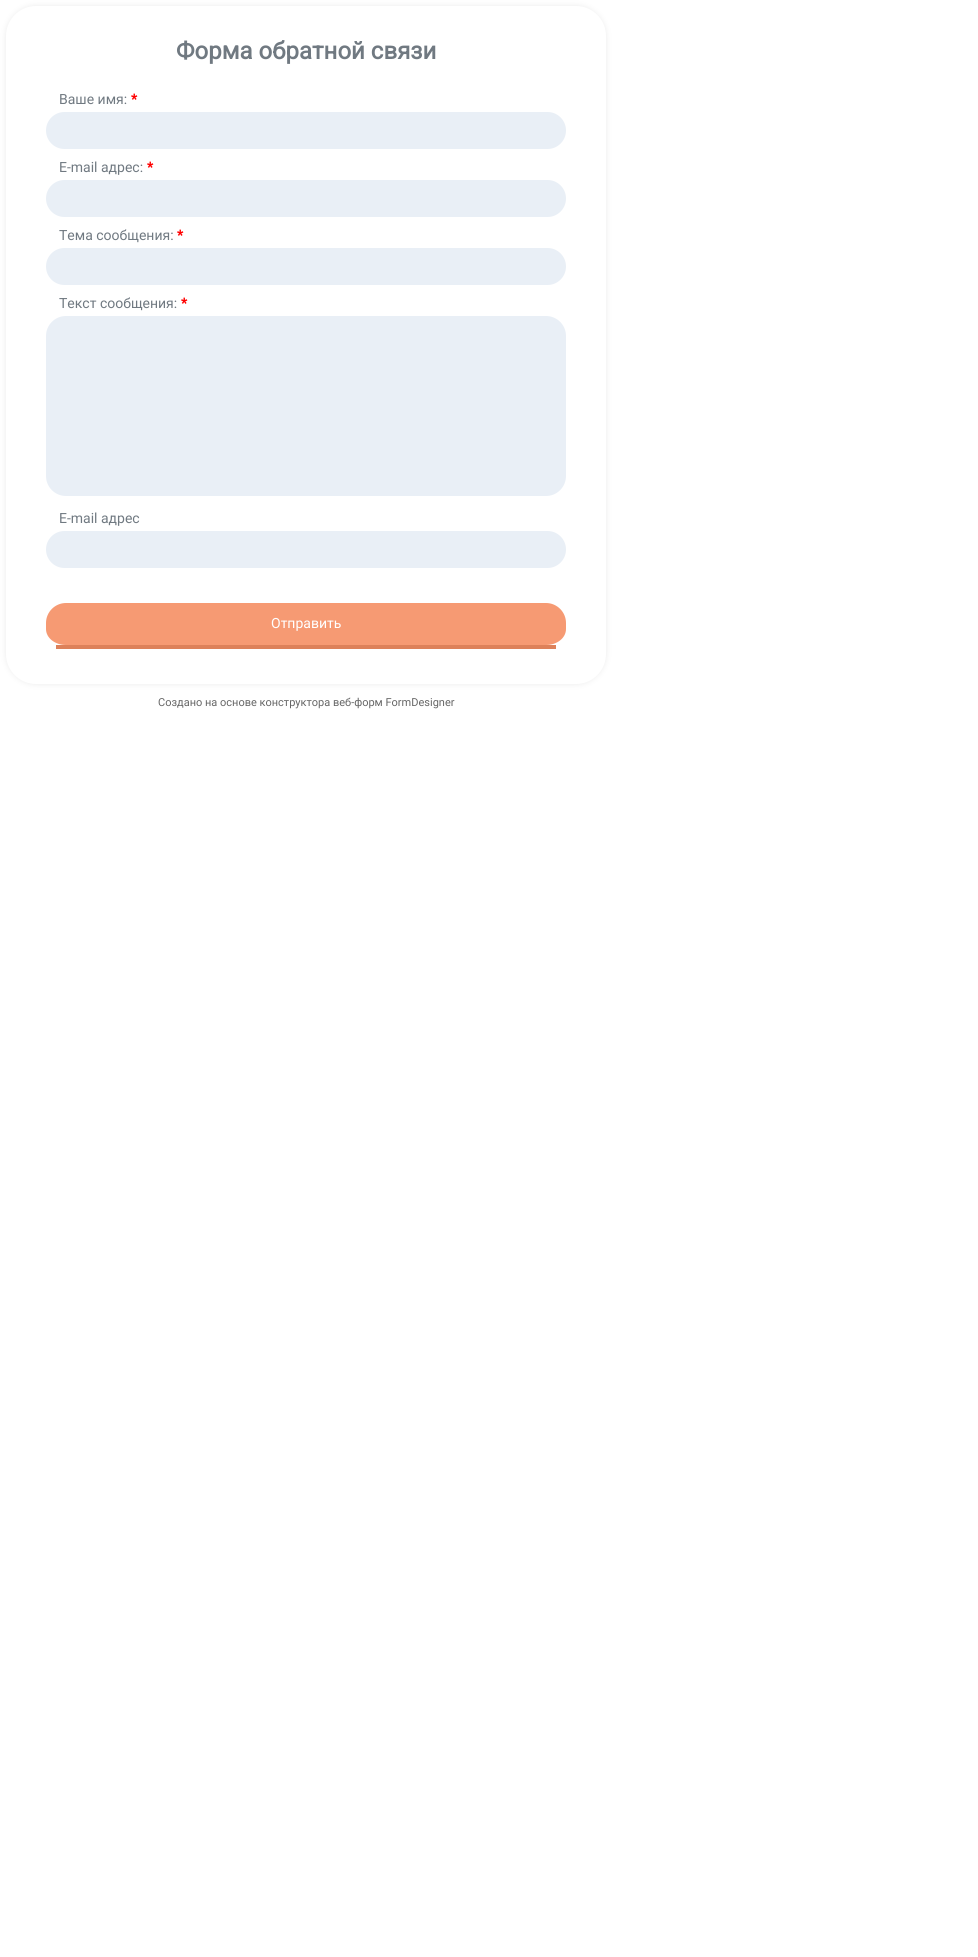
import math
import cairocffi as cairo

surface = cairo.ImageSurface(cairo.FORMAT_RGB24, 978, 1957)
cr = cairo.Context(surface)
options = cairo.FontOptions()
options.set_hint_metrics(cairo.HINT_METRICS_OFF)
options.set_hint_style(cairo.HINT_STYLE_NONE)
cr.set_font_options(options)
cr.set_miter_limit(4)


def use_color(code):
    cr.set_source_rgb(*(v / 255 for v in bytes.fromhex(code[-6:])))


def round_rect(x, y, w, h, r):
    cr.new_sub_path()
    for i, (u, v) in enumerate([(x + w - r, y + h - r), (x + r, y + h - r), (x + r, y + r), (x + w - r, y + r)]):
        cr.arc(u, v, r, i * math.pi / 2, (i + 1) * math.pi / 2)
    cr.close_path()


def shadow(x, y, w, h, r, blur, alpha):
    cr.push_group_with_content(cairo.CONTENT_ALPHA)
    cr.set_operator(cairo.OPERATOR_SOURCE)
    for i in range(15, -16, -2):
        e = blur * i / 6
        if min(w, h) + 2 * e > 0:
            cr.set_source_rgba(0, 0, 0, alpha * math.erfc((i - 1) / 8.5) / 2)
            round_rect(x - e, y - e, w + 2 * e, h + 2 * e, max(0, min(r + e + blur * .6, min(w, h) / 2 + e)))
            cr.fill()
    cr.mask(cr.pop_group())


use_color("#ffffff")
cr.paint()
use_color("#eaeaea")
shadow(6, 6, 600, 678, 30, 3, 1)
use_color("#ffffff")
round_rect(6, 6, 600, 678, 30)
cr.fill()
cr.select_font_face("Roboto", cairo.FONT_SLANT_NORMAL, cairo.FONT_WEIGHT_BOLD)
cr.set_font_size(24)
use_color("#707981")
cr.move_to(176, 59)
cr.show_text("Форма обратной связи")
cr.select_font_face("Roboto")
cr.set_font_size(14)
cr.move_to(59, 104)
cr.show_text("Ваше имя:")
cr.select_font_face("Roboto", cairo.FONT_SLANT_NORMAL, cairo.FONT_WEIGHT_BOLD)
use_color("#ff0000")
cr.move_to(131, 104)
cr.show_text("*")
use_color("#e9eff6")
round_rect(46, 112, 520, 37, 18.5)
cr.fill()
cr.select_font_face("Roboto")
use_color("#707981")
cr.move_to(59, 172)
cr.show_text("E-mail адрес:")
cr.select_font_face("Roboto", cairo.FONT_SLANT_NORMAL, cairo.FONT_WEIGHT_BOLD)
use_color("#ff0000")
cr.move_to(147, 172)
cr.show_text("*")
use_color("#e9eff6")
round_rect(46, 180, 520, 37, 18.5)
cr.fill()
cr.select_font_face("Roboto")
use_color("#707981")
cr.move_to(59, 240)
cr.show_text("Тема сообщения:")
cr.select_font_face("Roboto", cairo.FONT_SLANT_NORMAL, cairo.FONT_WEIGHT_BOLD)
use_color("#ff0000")
cr.move_to(177, 240)
cr.show_text("*")
use_color("#e9eff6")
round_rect(46, 248, 520, 37, 18.5)
cr.fill()
cr.select_font_face("Roboto")
use_color("#707981")
cr.move_to(59, 308)
cr.show_text("Текст сообщения:")
cr.select_font_face("Roboto", cairo.FONT_SLANT_NORMAL, cairo.FONT_WEIGHT_BOLD)
use_color("#ff0000")
cr.move_to(181, 308)
cr.show_text("*")
use_color("#e9eff6")
round_rect(46, 316, 520, 180, 20)
cr.fill()
cr.select_font_face("Roboto")
use_color("#707981")
cr.move_to(59, 523)
cr.show_text("E-mail адрес")
use_color("#e9eff6")
round_rect(46, 531, 520, 37, 18.5)
cr.fill()
use_color("#f69a73")
cr.new_path()
cr.move_to(66, 603)
cr.line_to(546, 603)
cr.curve_to(557, 603, 566, 612, 566, 623)
cr.line_to(566, 629)
cr.curve_to(566, 638, 557, 645, 546, 645)
cr.line_to(66, 645)
cr.curve_to(55, 645, 46, 638, 46, 629)
cr.line_to(46, 623)
cr.curve_to(46, 612, 55, 603, 66, 603)
cr.close_path()
cr.fill()
use_color("#dd815a")
cr.rectangle(56, 645, 500, 4)
cr.fill()
use_color("#ffffff")
cr.move_to(271, 628)
cr.show_text("Отправить")
cr.set_font_size(11)
use_color("#666666")
cr.move_to(158, 706)
cr.show_text("Создано на основе конструктора веб-форм FormDesigner")
surface.write_to_png("result.png")
